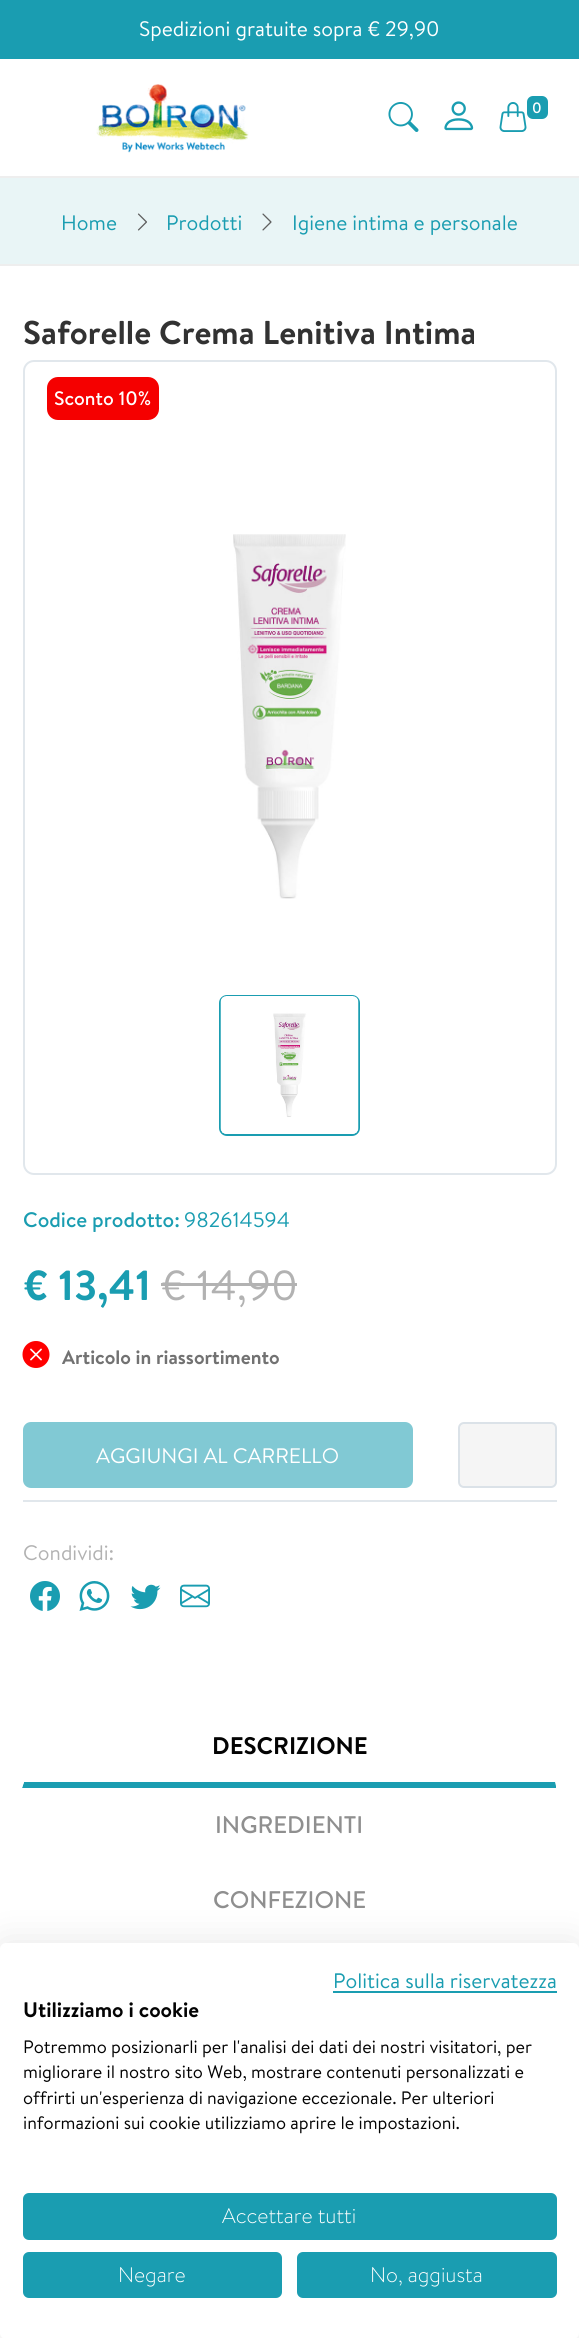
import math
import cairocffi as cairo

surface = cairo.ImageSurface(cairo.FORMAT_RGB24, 579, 2338)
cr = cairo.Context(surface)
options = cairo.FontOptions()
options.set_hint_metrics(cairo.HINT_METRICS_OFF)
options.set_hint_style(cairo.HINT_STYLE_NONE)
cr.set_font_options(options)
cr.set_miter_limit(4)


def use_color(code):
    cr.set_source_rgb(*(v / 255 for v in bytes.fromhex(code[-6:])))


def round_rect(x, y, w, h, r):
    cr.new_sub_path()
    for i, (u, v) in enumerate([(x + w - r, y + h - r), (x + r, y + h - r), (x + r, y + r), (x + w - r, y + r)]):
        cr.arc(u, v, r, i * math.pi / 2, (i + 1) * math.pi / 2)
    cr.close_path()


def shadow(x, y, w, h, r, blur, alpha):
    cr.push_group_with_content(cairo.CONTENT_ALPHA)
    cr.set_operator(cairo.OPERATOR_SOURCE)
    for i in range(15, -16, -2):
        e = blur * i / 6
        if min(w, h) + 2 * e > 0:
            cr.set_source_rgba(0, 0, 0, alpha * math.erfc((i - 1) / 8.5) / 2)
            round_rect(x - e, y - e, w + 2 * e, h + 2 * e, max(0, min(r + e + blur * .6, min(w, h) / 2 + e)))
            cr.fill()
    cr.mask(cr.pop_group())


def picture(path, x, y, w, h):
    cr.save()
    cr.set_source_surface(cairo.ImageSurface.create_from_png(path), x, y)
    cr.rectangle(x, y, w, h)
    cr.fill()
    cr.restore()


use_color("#ffffff")
cr.paint()
use_color("#1a9db1")
cr.rectangle(0, 0, 579, 59)
cr.fill()
cr.select_font_face("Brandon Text")
cr.set_font_size(21)
use_color("#ffffff")
cr.move_to(139, 36)
cr.show_text("Spedizioni gratuite sopra € 29,90")
use_color("#eeeeee")
cr.rectangle(0, 176, 579, 2)
cr.fill()
picture("img1.png", 96, 84, 153, 69)
picture("img2.png", 388, 102, 31, 30)
picture("img3.png", 444, 101, 30, 30)
picture("img4.png", 499, 102, 28, 30)
use_color("#1a9db1")
round_rect(527, 96, 21, 23, 6)
cr.fill()
cr.select_font_face("Brandon Text Medium")
cr.set_font_size(15)
use_color("#ffffff")
cr.move_to(532, 113)
cr.show_text("0")
use_color("#e9f5f6")
cr.rectangle(0, 178, 579, 86)
cr.fill()
use_color("#eeeeee")
cr.rectangle(0, 264, 579, 2)
cr.fill()
cr.select_font_face("Brandon Text")
cr.set_font_size(21)
use_color("#1a9db1")
cr.move_to(61, 230)
cr.show_text("Home")
picture("img5.png", 137, 213, 10, 18)
cr.move_to(166, 230)
cr.show_text("Prodotti")
picture("img6.png", 262, 213, 10, 18)
cr.move_to(292, 230)
cr.show_text("Igiene intima e personale")
cr.select_font_face("Brandon Text", cairo.FONT_SLANT_NORMAL, cairo.FONT_WEIGHT_BOLD)
cr.set_font_size(33)
use_color("#323232")
cr.move_to(23, 344)
cr.show_text("Saforelle Crema Lenitiva Intima")
round_rect(24, 361, 532, 813, 10)
use_color("#e1e7ec")
cr.stroke()
use_color("#f50000")
round_rect(47, 377, 112, 43, 11)
cr.fill()
cr.select_font_face("Brandon Text Medium")
cr.set_font_size(19.5)
use_color("#ffffff")
cr.move_to(54, 405)
cr.show_text("Sconto 10%")
picture("img7.png", 233, 534, 113, 365)
round_rect(220, 996, 139, 139, 7)
use_color("#1a9db1")
cr.stroke()
picture("img8.png", 220, 996, 139, 138)
cr.set_font_size(21)
cr.move_to(23, 1227)
cr.show_text("Codice prodotto:")
cr.select_font_face("Brandon Text")
cr.move_to(184, 1227)
cr.show_text("982614594")
cr.select_font_face("Brandon Text", cairo.FONT_SLANT_NORMAL, cairo.FONT_WEIGHT_BOLD)
cr.set_font_size(42)
cr.move_to(23, 1300)
cr.show_text("€ 13,41")
cr.select_font_face("Brandon Text")
use_color("#b2b2b2")
cr.move_to(161, 1300)
cr.show_text("€ 14,90")
cr.rectangle(161, 1283, 136, 3)
cr.fill()
picture("img9.png", 22, 1341, 28, 27)
cr.select_font_face("Brandon Text", cairo.FONT_SLANT_NORMAL, cairo.FONT_WEIGHT_BOLD)
cr.set_font_size(19.5)
use_color("#727272")
cr.move_to(62, 1364)
cr.show_text("Articolo in riassortimento")
use_color("#81c9d4")
round_rect(23, 1422, 390, 66, 8)
cr.fill()
cr.select_font_face("Brandon Text")
cr.set_font_size(21)
use_color("#ffffff")
cr.move_to(96, 1463)
cr.show_text("AGGIUNGI AL CARRELLO")
use_color("#f5f5f5")
round_rect(459, 1423, 97, 64, 5)
cr.fill_preserve()
use_color("#dbe2e8")
cr.stroke()
use_color("#e1e7ec")
cr.rectangle(23, 1500, 534, 2)
cr.fill()
use_color("#b2b2b2")
cr.move_to(23, 1560)
cr.show_text("Condividi:")
picture("img10.png", 30, 1581, 30, 30)
picture("img11.png", 79, 1581, 31, 30)
picture("img12.png", 130, 1584, 31, 26)
picture("img13.png", 180, 1584, 30, 24)
use_color("#1a9db1")
cr.new_path()
cr.move_to(22, 1788)
cr.line_to(556, 1788)
cr.line_to(556, 1786)
cr.line_to(555, 1782)
cr.line_to(24, 1782)
cr.close_path()
cr.fill()
use_color("#ffffff")
cr.new_path()
cr.move_to(22, 1788)
cr.line_to(22, 1712)
cr.line_to(24, 1709)
cr.line_to(26, 1710)
cr.curve_to(25, 1711, 24, 1713, 24, 1714)
cr.line_to(24, 1782)
cr.close_path()
cr.fill()
cr.select_font_face("Brandon Text", cairo.FONT_SLANT_NORMAL, cairo.FONT_WEIGHT_BOLD)
cr.set_font_size(24)
use_color("#030303")
cr.move_to(212, 1754)
cr.show_text("DESCRIZIONE")
cr.select_font_face("Brandon Text Medium")
use_color("#8f8f8f")
cr.move_to(215, 1833)
cr.show_text("INGREDIENTI")
cr.move_to(213, 1908)
cr.show_text("CONFEZIONE")
use_color("#000000")
shadow(0, 1943, 579, 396, 6, 18, 0.1)
use_color("#ffffff")
round_rect(0, 1943, 579, 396, 6)
cr.fill()
cr.select_font_face("Brandon Text")
cr.set_font_size(21)
use_color("#1a9db1")
cr.move_to(333, 1988)
cr.show_text("Politica sulla riservatezza")
cr.rectangle(333, 1991, 224, 2)
cr.fill()
cr.select_font_face("Brandon Text", cairo.FONT_SLANT_NORMAL, cairo.FONT_WEIGHT_BOLD)
use_color("#030303")
cr.move_to(23, 2017)
cr.show_text("Utilizziamo i cookie")
cr.select_font_face("Brandon Text")
cr.set_font_size(18)
cr.move_to(23, 2053)
cr.show_text("Potremmo posizionarli per l'analisi dei dati dei nostri visitatori, per")
cr.move_to(23, 2078)
cr.show_text("migliorare il nostro sito Web, mostrare contenuti personalizzati e")
cr.move_to(23, 2104)
cr.show_text("offrirti un'esperienza di navigazione eccezionale. Per ulteriori")
cr.move_to(23, 2129)
cr.show_text("informazioni sui cookie utilizziamo aprire le impostazioni.")
use_color("#1a9db1")
round_rect(24, 2194, 532, 45, 5)
cr.fill_preserve()
cr.stroke()
cr.select_font_face("Brandon Text Light")
cr.set_font_size(21)
use_color("#ffffff")
cr.move_to(222, 2223)
cr.show_text("Accettare tutti")
use_color("#1a9db1")
round_rect(24, 2253, 257, 44, 5)
cr.fill_preserve()
cr.stroke()
use_color("#ffffff")
cr.move_to(118, 2282)
cr.show_text("Negare")
use_color("#1a9db1")
round_rect(298, 2253, 258, 44, 5)
cr.fill_preserve()
cr.stroke()
use_color("#ffffff")
cr.move_to(370, 2282)
cr.show_text("No, aggiusta")
surface.write_to_png("result.png")
